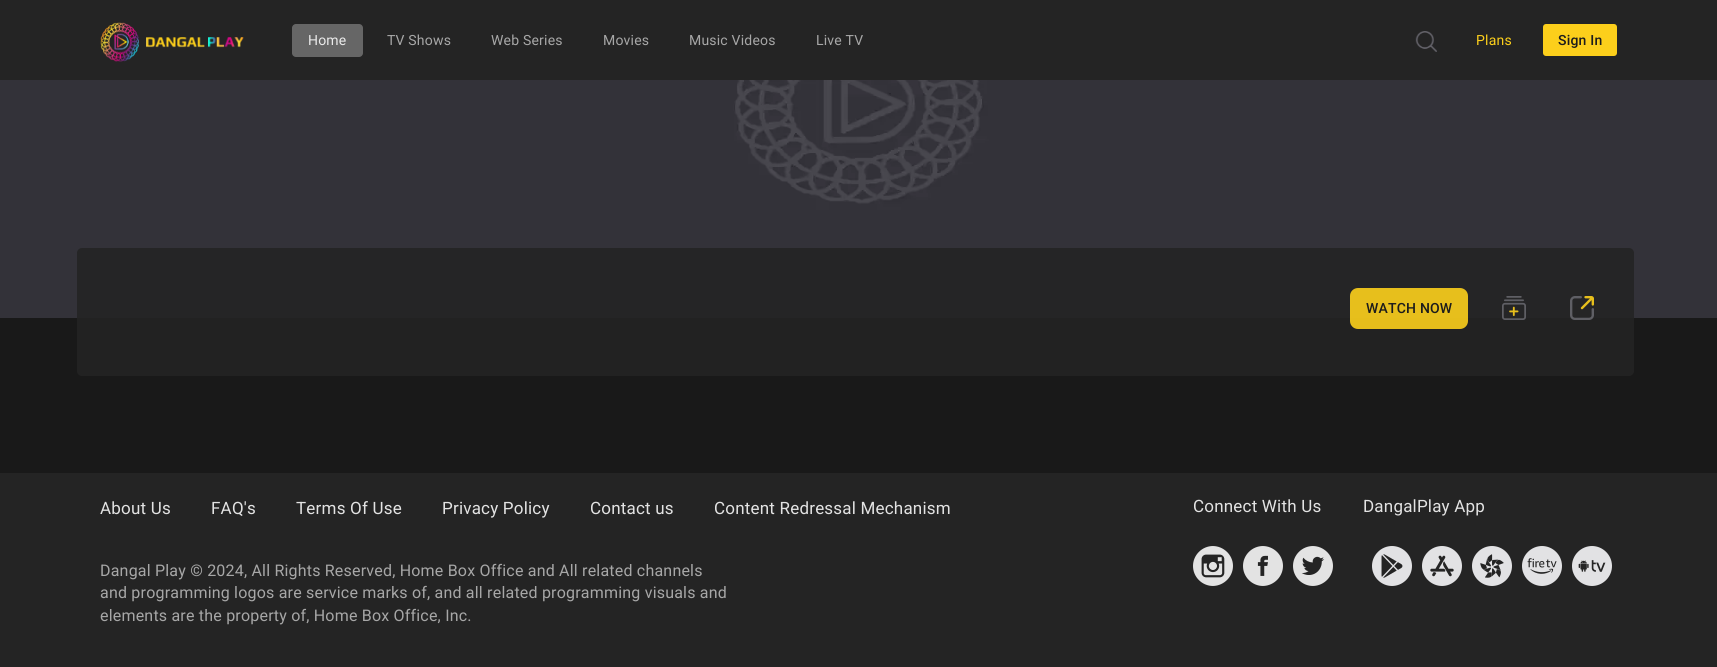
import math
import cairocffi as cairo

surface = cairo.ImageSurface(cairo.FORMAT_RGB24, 1717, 667)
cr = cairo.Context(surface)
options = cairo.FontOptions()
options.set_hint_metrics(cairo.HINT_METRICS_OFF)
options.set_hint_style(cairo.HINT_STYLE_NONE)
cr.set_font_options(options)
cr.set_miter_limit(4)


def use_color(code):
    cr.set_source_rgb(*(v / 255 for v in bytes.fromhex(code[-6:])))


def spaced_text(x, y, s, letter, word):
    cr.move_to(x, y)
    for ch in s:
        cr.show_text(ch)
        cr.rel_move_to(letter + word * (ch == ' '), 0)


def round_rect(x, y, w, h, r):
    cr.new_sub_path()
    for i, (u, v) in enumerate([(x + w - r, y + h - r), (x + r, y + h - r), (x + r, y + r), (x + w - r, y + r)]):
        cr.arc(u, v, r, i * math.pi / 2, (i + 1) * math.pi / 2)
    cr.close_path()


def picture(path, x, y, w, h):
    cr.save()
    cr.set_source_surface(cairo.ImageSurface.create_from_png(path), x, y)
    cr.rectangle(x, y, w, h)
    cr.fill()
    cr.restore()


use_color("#191919")
cr.paint()
use_color("#242424")
cr.rectangle(0, 0, 1717, 80)
cr.fill()
picture("img1.png", 100, 22, 144, 40)
use_color("#666666")
round_rect(292, 24, 71, 33, 4)
cr.fill()
cr.select_font_face("Roboto")
cr.set_font_size(14)
use_color("#ebebeb")
spaced_text(308, 45, "Home", 0.2, 0)
use_color("#a7a7a7")
spaced_text(387, 45, "TV Shows", 0.2, 0)
spaced_text(491, 45, "Web Series", 0.2, 0)
spaced_text(603, 45, "Movies", 0.2, 0)
spaced_text(689, 45, "Music Videos", 0.2, 0)
spaced_text(816, 45, "Live TV", 0.2, 0)
picture("img2.png", 1415, 31, 22, 21)
use_color("#fccf1b")
spaced_text(1476, 45, "Plans", 0.2, 0)
round_rect(1543, 24, 74, 32, 3)
cr.fill()
cr.select_font_face("Roboto Medium")
use_color("#1c1c1c")
spaced_text(1558, 45, "Sign In", 0.2, 0)
picture("img3.png", 0, 80, 1717, 238)
cr.set_source_rgba(0.141, 0.141, 0.141, 0.9)
round_rect(77, 248, 1557, 128, 5)
cr.fill()
cr.set_source_rgba(0.988, 0.812, 0.106, 0.9)
round_rect(1350, 288, 118, 41, 8)
cr.fill()
use_color("#1c1c1c")
spaced_text(1366, 313, "WATCH NOW", 0.2, 0)
picture("img4.png", 1502, 296, 24, 24)
picture("img5.png", 1570, 296, 24, 24)
use_color("#242424")
cr.rectangle(0, 473, 1717, 194)
cr.fill()
cr.select_font_face("Roboto")
cr.set_font_size(17)
use_color("#e3e3e3")
spaced_text(100, 514, "About Us", 0.2, 0)
spaced_text(211, 514, "FAQ's", 0.2, 0)
spaced_text(296, 514, "Terms Of Use", 0.2, 0)
spaced_text(442, 514, "Privacy Policy", 0.2, 0)
spaced_text(590, 514, "Contact us", 0.2, 0)
spaced_text(714, 514, "Content Redressal Mechanism", 0.2, 0)
cr.set_font_size(16)
use_color("#a7a7a7")
spaced_text(100, 576, "Dangal Play © 2024, All Rights Reserved, Home Box Office and All related channels", 0.2, 0)
spaced_text(100, 598, "and programming logos are service marks of, and all related programming visuals and", 0.2, 0)
spaced_text(100, 621, "elements are the property of, Home Box Office, Inc.", 0.2, 0)
cr.set_font_size(17)
use_color("#e3e3e3")
spaced_text(1193, 512, "Connect With Us", 0.2, 0)
picture("img6.png", 1193, 546, 40, 40)
picture("img7.png", 1243, 546, 40, 40)
picture("img8.png", 1293, 546, 40, 40)
spaced_text(1363, 512, "DangalPlay App", 0.2, 0)
picture("img9.png", 1372, 546, 40, 40)
picture("img10.png", 1422, 546, 40, 40)
picture("img11.png", 1472, 546, 40, 40)
picture("img12.png", 1522, 546, 40, 40)
picture("img13.png", 1572, 546, 40, 40)
surface.write_to_png("result.png")
